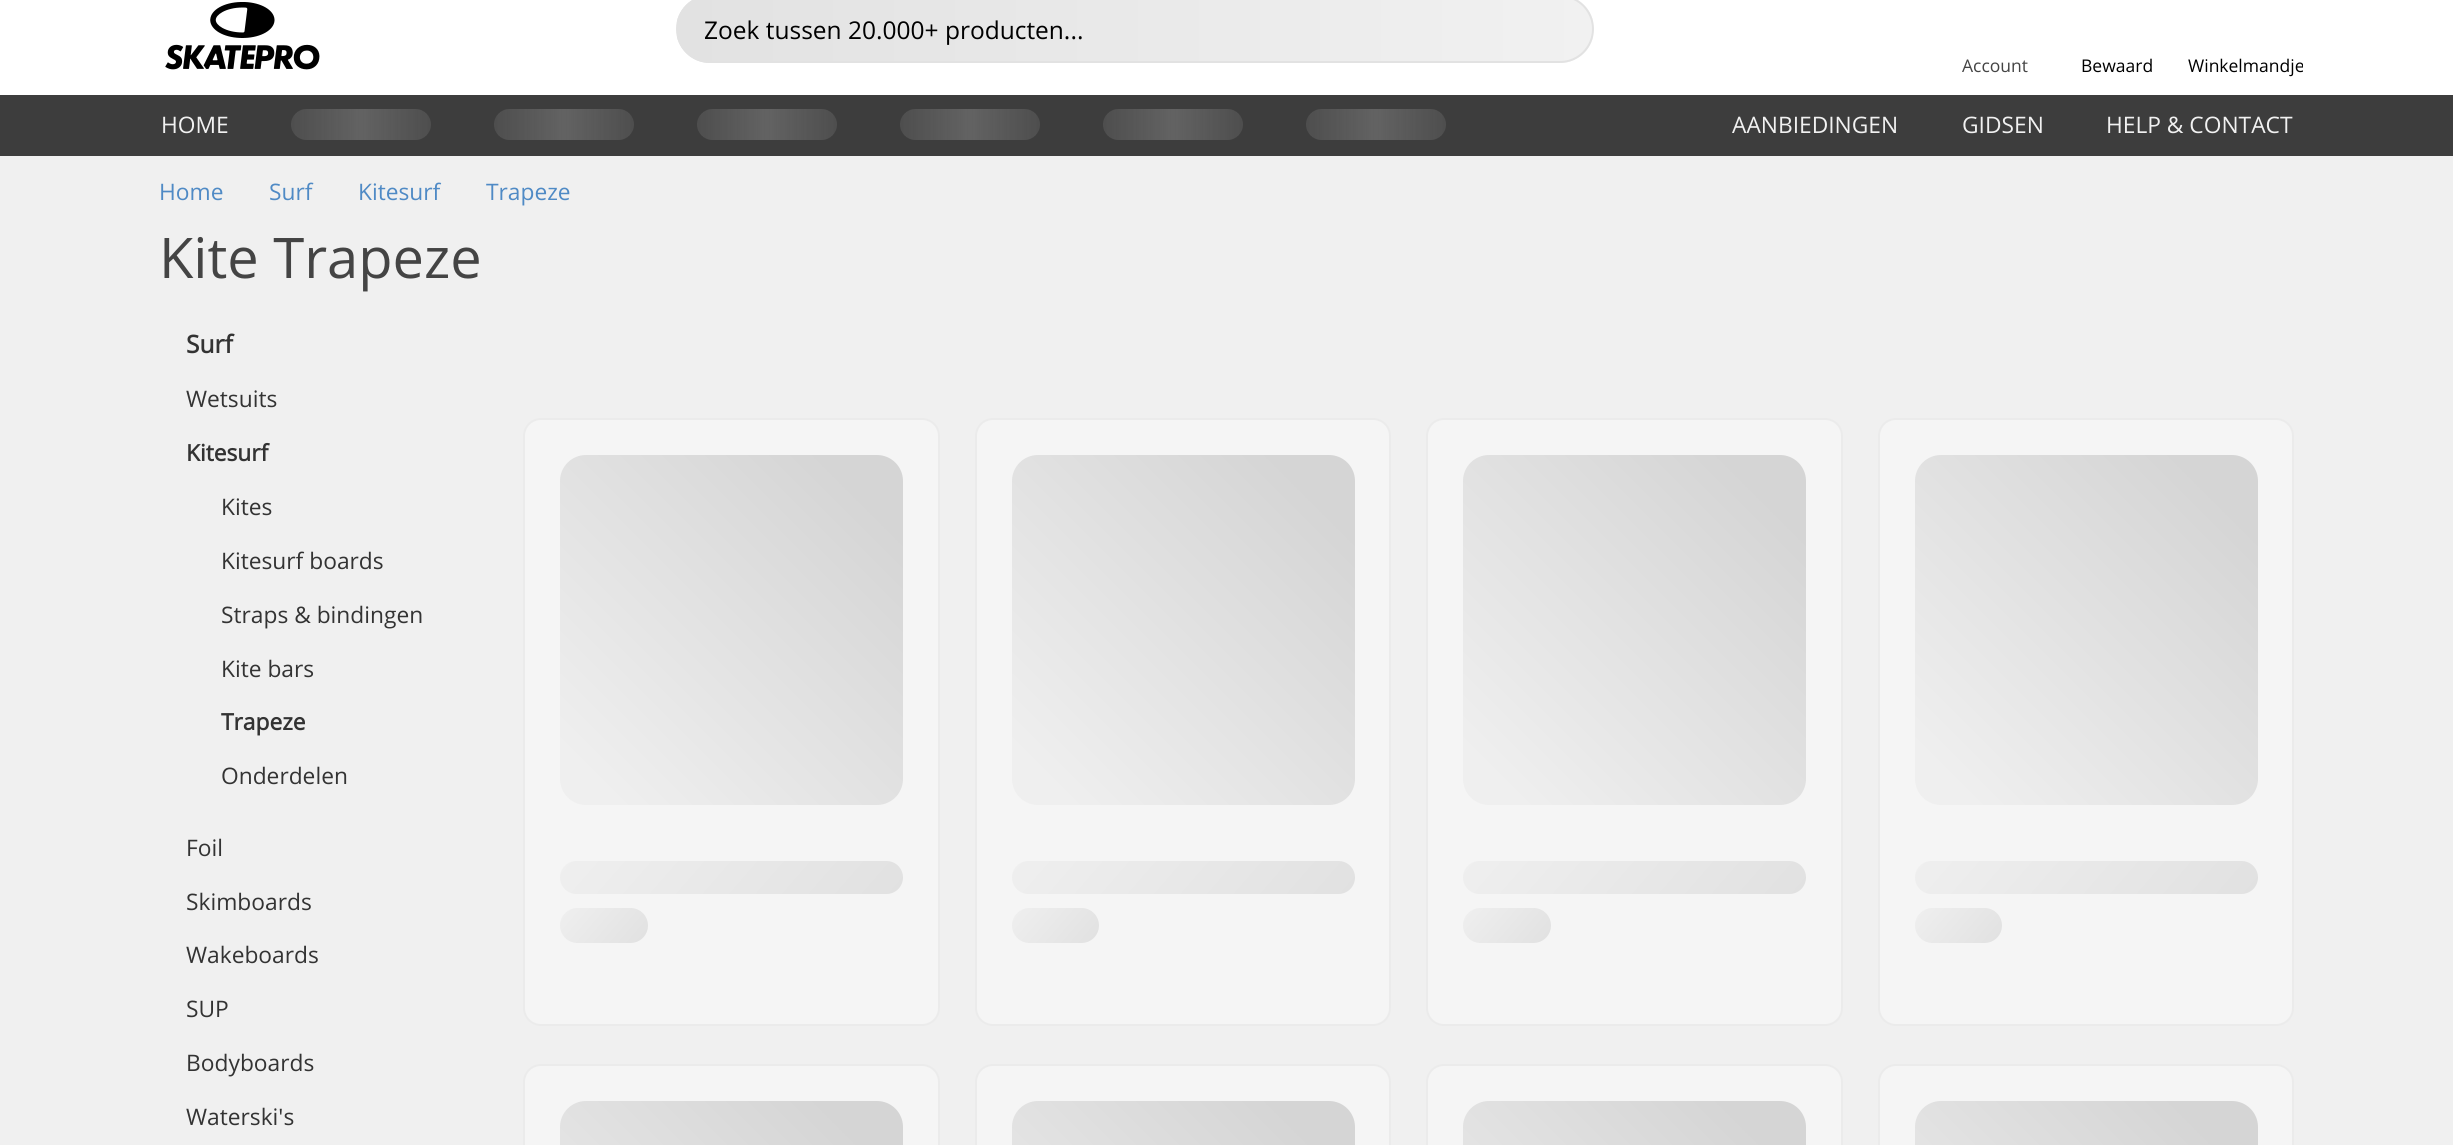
import math
import cairocffi as cairo

surface = cairo.ImageSurface(cairo.FORMAT_RGB24, 2453, 1145)
cr = cairo.Context(surface)
options = cairo.FontOptions()
options.set_hint_metrics(cairo.HINT_METRICS_OFF)
options.set_hint_style(cairo.HINT_STYLE_NONE)
cr.set_font_options(options)
cr.set_miter_limit(4)


def use_color(code):
    cr.set_source_rgb(*(v / 255 for v in bytes.fromhex(code[-6:])))


def round_rect(x, y, w, h, r):
    cr.new_sub_path()
    for i, (u, v) in enumerate([(x + w - r, y + h - r), (x + r, y + h - r), (x + r, y + r), (x + w - r, y + r)]):
        cr.arc(u, v, r, i * math.pi / 2, (i + 1) * math.pi / 2)
    cr.close_path()


def picture(path, x, y, w, h):
    cr.save()
    cr.set_source_surface(cairo.ImageSurface.create_from_png(path), x, y)
    cr.rectangle(x, y, w, h)
    cr.fill()
    cr.restore()


use_color("#3d3d3d")
cr.paint()
use_color("#ffffff")
cr.rectangle(0, 0, 2453, 95)
cr.fill()
picture("img1.png", 165, 2, 155, 68)
cr.save()
round_rect(676, -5, 918, 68, 34)
cr.clip()
gradient = cairo.LinearGradient(677, 29, 1593, 29)
gradient.add_color_stop_rgba(0, 0.886, 0.886, 0.886, 1)
gradient.add_color_stop_rgba(1, 0.945, 0.945, 0.945, 1)
cr.set_source(gradient)
cr.rectangle(677, 0, 916, 63)
cr.fill()
cr.restore()
round_rect(677, -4, 916, 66, 33)
use_color("#e2e2e2")
cr.stroke()
cr.select_font_face("Open Sans")
cr.set_font_size(24.5)
use_color("#000000")
cr.move_to(704, 39)
cr.show_text("Zoek tussen 20.000+ producten...")
cr.set_font_size(17.5)
use_color("#444444")
cr.move_to(1962, 72)
cr.show_text("Account")
use_color("#000000")
cr.move_to(2081, 72)
cr.show_text("Bewaard")
cr.save()
cr.rectangle(2188, 0, 115, 77)
cr.clip()
cr.move_to(2188, 72)
cr.show_text("Winkelmandje")
cr.restore()
cr.set_font_size(22.75)
use_color("#f1f1f1")
cr.move_to(161, 133)
cr.show_text("HOME")
use_color("#4e4e4e")
round_rect(291, 109, 140, 31, 15.5)
cr.fill()
gradient = cairo.LinearGradient(291, 124, 431, 124)
gradient.add_color_stop_rgba(0, 0.467, 0.467, 0.467, 0)
gradient.add_color_stop_rgba(0.5, 0.467, 0.467, 0.467, 0.5)
gradient.add_color_stop_rgba(1, 0.467, 0.467, 0.467, 0)
cr.set_source(gradient)
round_rect(291, 109, 140, 31, 15.5)
cr.fill()
use_color("#4e4e4e")
round_rect(494, 109, 140, 31, 15.5)
cr.fill()
gradient = cairo.LinearGradient(494, 124, 634, 124)
gradient.add_color_stop_rgba(0, 0.467, 0.467, 0.467, 0)
gradient.add_color_stop_rgba(0.5, 0.467, 0.467, 0.467, 0.5)
gradient.add_color_stop_rgba(1, 0.467, 0.467, 0.467, 0)
cr.set_source(gradient)
round_rect(494, 109, 140, 31, 15.5)
cr.fill()
use_color("#4e4e4e")
round_rect(697, 109, 140, 31, 15.5)
cr.fill()
gradient = cairo.LinearGradient(697, 124, 837, 124)
gradient.add_color_stop_rgba(0, 0.467, 0.467, 0.467, 0)
gradient.add_color_stop_rgba(0.5, 0.467, 0.467, 0.467, 0.5)
gradient.add_color_stop_rgba(1, 0.467, 0.467, 0.467, 0)
cr.set_source(gradient)
round_rect(697, 109, 140, 31, 15.5)
cr.fill()
use_color("#4e4e4e")
round_rect(900, 109, 140, 31, 15.5)
cr.fill()
gradient = cairo.LinearGradient(900, 124, 1040, 124)
gradient.add_color_stop_rgba(0, 0.467, 0.467, 0.467, 0)
gradient.add_color_stop_rgba(0.5, 0.467, 0.467, 0.467, 0.5)
gradient.add_color_stop_rgba(1, 0.467, 0.467, 0.467, 0)
cr.set_source(gradient)
round_rect(900, 109, 140, 31, 15.5)
cr.fill()
use_color("#4e4e4e")
round_rect(1103, 109, 140, 31, 15.5)
cr.fill()
gradient = cairo.LinearGradient(1103, 124, 1243, 124)
gradient.add_color_stop_rgba(0, 0.467, 0.467, 0.467, 0)
gradient.add_color_stop_rgba(0.5, 0.467, 0.467, 0.467, 0.5)
gradient.add_color_stop_rgba(1, 0.467, 0.467, 0.467, 0)
cr.set_source(gradient)
round_rect(1103, 109, 140, 31, 15.5)
cr.fill()
use_color("#4e4e4e")
round_rect(1306, 109, 140, 31, 15.5)
cr.fill()
gradient = cairo.LinearGradient(1306, 124, 1446, 124)
gradient.add_color_stop_rgba(0, 0.467, 0.467, 0.467, 0)
gradient.add_color_stop_rgba(0.5, 0.467, 0.467, 0.467, 0.5)
gradient.add_color_stop_rgba(1, 0.467, 0.467, 0.467, 0)
cr.set_source(gradient)
round_rect(1306, 109, 140, 31, 15.5)
cr.fill()
use_color("#f1f1f1")
cr.move_to(1732, 133)
cr.show_text("AANBIEDINGEN")
cr.move_to(1962, 133)
cr.show_text("GIDSEN")
cr.move_to(2106, 133)
cr.show_text("HELP & CONTACT")
use_color("#f0f0f0")
cr.rectangle(0, 156, 2453, 989)
cr.fill()
use_color("#4f8ac5")
cr.move_to(159, 200)
cr.show_text("Home")
cr.move_to(269, 200)
cr.show_text("Surf")
cr.move_to(358, 200)
cr.show_text("Kitesurf")
cr.move_to(486, 200)
cr.show_text("Trapeze")
cr.set_font_size(56)
use_color("#444444")
cr.move_to(159, 278)
cr.show_text("Kite Trapeze")
cr.select_font_face("Open Sans", cairo.FONT_SLANT_NORMAL, cairo.FONT_WEIGHT_BOLD)
cr.set_font_size(24.5)
use_color("#333333")
cr.move_to(186, 353)
cr.show_text("Surf")
cr.select_font_face("Open Sans")
cr.set_font_size(22.75)
cr.move_to(186, 407)
cr.show_text("Wetsuits")
cr.select_font_face("Open Sans", cairo.FONT_SLANT_NORMAL, cairo.FONT_WEIGHT_BOLD)
cr.move_to(186, 461)
cr.show_text("Kitesurf")
cr.select_font_face("Open Sans")
cr.move_to(221, 515)
cr.show_text("Kites")
cr.move_to(221, 569)
cr.show_text("Kitesurf boards")
cr.move_to(221, 623)
cr.show_text("Straps & bindingen")
cr.move_to(221, 677)
cr.show_text("Kite bars")
cr.select_font_face("Open Sans", cairo.FONT_SLANT_NORMAL, cairo.FONT_WEIGHT_BOLD)
cr.move_to(221, 730)
cr.show_text("Trapeze")
cr.select_font_face("Open Sans")
cr.move_to(221, 784)
cr.show_text("Onderdelen")
cr.move_to(186, 856)
cr.show_text("Foil")
cr.move_to(186, 910)
cr.show_text("Skimboards")
cr.move_to(186, 963)
cr.show_text("Wakeboards")
cr.move_to(186, 1017)
cr.show_text("SUP")
cr.move_to(186, 1071)
cr.show_text("Bodyboards")
cr.move_to(186, 1125)
cr.show_text("Waterski's")
use_color("#f5f5f5")
round_rect(524, 419, 415, 606, 17)
cr.fill_preserve()
use_color("#ebebeb")
cr.stroke()
gradient = cairo.LinearGradient(553, 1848, 1939, 462)
gradient.add_color_stop_rgba(0.4, 0.937, 0.937, 0.937, 1)
gradient.add_color_stop_rgba(0.6, 0.835, 0.835, 0.835, 1)
cr.set_source(gradient)
round_rect(560, 455, 343, 350, 26)
cr.fill()
gradient = cairo.LinearGradient(626, 786, 837, 970)
gradient.add_color_stop_rgba(0, 0.937, 0.937, 0.937, 1)
gradient.add_color_stop_rgba(1, 0.882, 0.882, 0.882, 1)
cr.set_source(gradient)
round_rect(560, 861, 343, 33, 16.5)
cr.fill()
gradient = cairo.LinearGradient(570, 897, 637, 955)
gradient.add_color_stop_rgba(0, 0.937, 0.937, 0.937, 1)
gradient.add_color_stop_rgba(1, 0.882, 0.882, 0.882, 1)
cr.set_source(gradient)
round_rect(560, 908, 88, 35, 17.5)
cr.fill()
use_color("#f5f5f5")
round_rect(976, 419, 414, 606, 17)
cr.fill_preserve()
use_color("#ebebeb")
cr.stroke()
gradient = cairo.LinearGradient(1005, 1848, 2391, 462)
gradient.add_color_stop_rgba(0.4, 0.937, 0.937, 0.937, 1)
gradient.add_color_stop_rgba(0.6, 0.835, 0.835, 0.835, 1)
cr.set_source(gradient)
round_rect(1012, 455, 343, 350, 26)
cr.fill()
gradient = cairo.LinearGradient(1077, 786, 1289, 970)
gradient.add_color_stop_rgba(0, 0.937, 0.937, 0.937, 1)
gradient.add_color_stop_rgba(1, 0.882, 0.882, 0.882, 1)
cr.set_source(gradient)
round_rect(1012, 861, 343, 33, 16.5)
cr.fill()
gradient = cairo.LinearGradient(1022, 897, 1089, 955)
gradient.add_color_stop_rgba(0, 0.937, 0.937, 0.937, 1)
gradient.add_color_stop_rgba(1, 0.882, 0.882, 0.882, 1)
cr.set_source(gradient)
round_rect(1012, 908, 87, 35, 17.5)
cr.fill()
use_color("#f5f5f5")
round_rect(1427, 419, 415, 606, 17)
cr.fill_preserve()
use_color("#ebebeb")
cr.stroke()
gradient = cairo.LinearGradient(1456, 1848, 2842, 462)
gradient.add_color_stop_rgba(0.4, 0.937, 0.937, 0.937, 1)
gradient.add_color_stop_rgba(0.6, 0.835, 0.835, 0.835, 1)
cr.set_source(gradient)
round_rect(1463, 455, 343, 350, 26)
cr.fill()
gradient = cairo.LinearGradient(1529, 786, 1740, 970)
gradient.add_color_stop_rgba(0, 0.937, 0.937, 0.937, 1)
gradient.add_color_stop_rgba(1, 0.882, 0.882, 0.882, 1)
cr.set_source(gradient)
round_rect(1463, 861, 343, 33, 16.5)
cr.fill()
gradient = cairo.LinearGradient(1473, 897, 1540, 955)
gradient.add_color_stop_rgba(0, 0.937, 0.937, 0.937, 1)
gradient.add_color_stop_rgba(1, 0.882, 0.882, 0.882, 1)
cr.set_source(gradient)
round_rect(1463, 908, 88, 35, 17.5)
cr.fill()
use_color("#f5f5f5")
round_rect(1879, 419, 414, 606, 17)
cr.fill_preserve()
use_color("#ebebeb")
cr.stroke()
gradient = cairo.LinearGradient(1908, 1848, 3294, 462)
gradient.add_color_stop_rgba(0.4, 0.937, 0.937, 0.937, 1)
gradient.add_color_stop_rgba(0.6, 0.835, 0.835, 0.835, 1)
cr.set_source(gradient)
round_rect(1915, 455, 343, 350, 26)
cr.fill()
gradient = cairo.LinearGradient(1980, 786, 2192, 970)
gradient.add_color_stop_rgba(0, 0.937, 0.937, 0.937, 1)
gradient.add_color_stop_rgba(1, 0.882, 0.882, 0.882, 1)
cr.set_source(gradient)
round_rect(1915, 861, 343, 33, 16.5)
cr.fill()
gradient = cairo.LinearGradient(1925, 897, 1992, 955)
gradient.add_color_stop_rgba(0, 0.937, 0.937, 0.937, 1)
gradient.add_color_stop_rgba(1, 0.882, 0.882, 0.882, 1)
cr.set_source(gradient)
round_rect(1915, 908, 87, 35, 17.5)
cr.fill()
use_color("#f5f5f5")
round_rect(524, 1065, 415, 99, 17)
cr.fill_preserve()
use_color("#ebebeb")
cr.stroke()
gradient = cairo.LinearGradient(553, 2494, 1939, 1108)
gradient.add_color_stop_rgba(0.4, 0.937, 0.937, 0.937, 1)
gradient.add_color_stop_rgba(0.6, 0.835, 0.835, 0.835, 1)
cr.set_source(gradient)
round_rect(560, 1101, 343, 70, 26)
cr.fill()
use_color("#f5f5f5")
round_rect(976, 1065, 414, 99, 17)
cr.fill_preserve()
use_color("#ebebeb")
cr.stroke()
gradient = cairo.LinearGradient(1005, 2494, 2391, 1108)
gradient.add_color_stop_rgba(0.4, 0.937, 0.937, 0.937, 1)
gradient.add_color_stop_rgba(0.6, 0.835, 0.835, 0.835, 1)
cr.set_source(gradient)
round_rect(1012, 1101, 343, 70, 26)
cr.fill()
use_color("#f5f5f5")
round_rect(1427, 1065, 415, 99, 17)
cr.fill_preserve()
use_color("#ebebeb")
cr.stroke()
gradient = cairo.LinearGradient(1456, 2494, 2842, 1108)
gradient.add_color_stop_rgba(0.4, 0.937, 0.937, 0.937, 1)
gradient.add_color_stop_rgba(0.6, 0.835, 0.835, 0.835, 1)
cr.set_source(gradient)
round_rect(1463, 1101, 343, 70, 26)
cr.fill()
use_color("#f5f5f5")
round_rect(1879, 1065, 414, 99, 17)
cr.fill_preserve()
use_color("#ebebeb")
cr.stroke()
gradient = cairo.LinearGradient(1908, 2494, 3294, 1108)
gradient.add_color_stop_rgba(0.4, 0.937, 0.937, 0.937, 1)
gradient.add_color_stop_rgba(0.6, 0.835, 0.835, 0.835, 1)
cr.set_source(gradient)
round_rect(1915, 1101, 343, 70, 26)
cr.fill()
surface.write_to_png("result.png")
